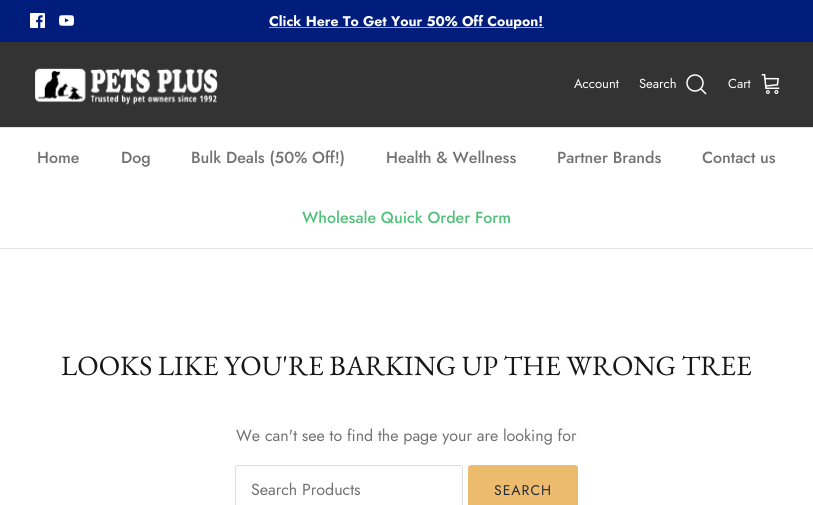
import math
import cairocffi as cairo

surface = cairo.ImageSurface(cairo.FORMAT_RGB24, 813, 505)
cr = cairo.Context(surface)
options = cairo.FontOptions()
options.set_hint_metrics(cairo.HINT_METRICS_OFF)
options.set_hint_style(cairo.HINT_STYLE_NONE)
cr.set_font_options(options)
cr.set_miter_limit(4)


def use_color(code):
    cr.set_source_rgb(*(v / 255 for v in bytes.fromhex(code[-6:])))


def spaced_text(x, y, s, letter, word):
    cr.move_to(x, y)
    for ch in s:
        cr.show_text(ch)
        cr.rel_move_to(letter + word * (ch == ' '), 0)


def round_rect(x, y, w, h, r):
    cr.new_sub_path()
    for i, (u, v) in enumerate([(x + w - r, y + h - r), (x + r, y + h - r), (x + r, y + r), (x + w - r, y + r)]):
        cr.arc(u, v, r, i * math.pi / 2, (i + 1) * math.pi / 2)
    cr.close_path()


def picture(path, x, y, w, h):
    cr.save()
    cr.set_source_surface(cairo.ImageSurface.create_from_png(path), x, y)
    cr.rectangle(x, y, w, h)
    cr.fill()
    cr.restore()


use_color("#ffffff")
cr.paint()
use_color("#001d7c")
cr.rectangle(0, 0, 813, 42)
cr.fill()
picture("img1.png", 30, 13, 15, 15)
picture("img2.png", 59, 15, 15, 11)
use_color("#99a5cb")
cr.rectangle(269, 27, 275, 1)
cr.fill()
cr.select_font_face("Jost", cairo.FONT_SLANT_NORMAL, cairo.FONT_WEIGHT_BOLD)
cr.set_font_size(14)
use_color("#ffffff")
cr.move_to(269, 26)
cr.show_text("Click Here To Get Your 50% Off Coupon!")
use_color("#333333")
cr.rectangle(0, 42, 813, 85)
cr.fill()
use_color("#dfe3e8")
cr.rectangle(0, 127, 813, 1)
cr.fill()
picture("img3.png", 35, 68, 183, 37)
cr.select_font_face("Jost")
cr.set_font_size(13)
use_color("#ffffff")
cr.move_to(574, 88)
cr.show_text("Account")
cr.move_to(639, 88)
cr.show_text("Search")
cr.new_path()
cr.arc(695, 83, 8, 0, 2 * math.pi)
cr.set_line_width(1.5)
cr.stroke()
cr.new_path()
cr.move_to(701, 89)
cr.line_to(705.5, 93.5)
cr.set_line_cap(cairo.LINE_CAP_SQUARE)
cr.stroke()
cr.move_to(728, 88)
cr.show_text("Cart")
picture("img4.png", 761, 74, 19, 20)
use_color("#dfe3e8")
cr.rectangle(0, 248, 813, 1)
cr.fill()
cr.select_font_face("Jost Medium")
cr.set_font_size(16)
use_color("#707173")
cr.move_to(37, 163)
cr.show_text("Home")
cr.move_to(121, 163)
cr.show_text("Dog")
cr.move_to(191, 163)
cr.show_text("Bulk Deals (50% Off!)")
cr.move_to(386, 163)
cr.show_text("Health & Wellness")
cr.move_to(557, 163)
cr.show_text("Partner Brands")
cr.move_to(702, 163)
cr.show_text("Contact us")
use_color("#52c17b")
cr.move_to(302, 223)
cr.show_text("Wholesale Quick Order Form")
cr.select_font_face("EB Garamond")
cr.set_font_size(28)
use_color("#171717")
cr.move_to(61, 375)
cr.show_text("LOOKS LIKE YOU'RE BARKING UP THE WRONG TREE")
cr.select_font_face("Jost")
cr.set_font_size(16)
use_color("#707173")
cr.move_to(236, 441)
cr.show_text("We can't see to find the page your are looking for")
round_rect(235.5, 465.5, 227, 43, 2.5)
use_color("#dbdcdc")
cr.set_line_width(1)
cr.set_line_cap(cairo.LINE_CAP_BUTT)
cr.stroke()
use_color("#707173")
cr.move_to(251, 495)
cr.show_text("Search Products")
use_color("#edbb6e")
round_rect(468.5, 465.5, 109, 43, 2.5)
cr.fill_preserve()
cr.stroke()
cr.set_font_size(14)
use_color("#212b36")
spaced_text(494, 495, "SEARCH", 1, 0)
surface.write_to_png("result.png")
